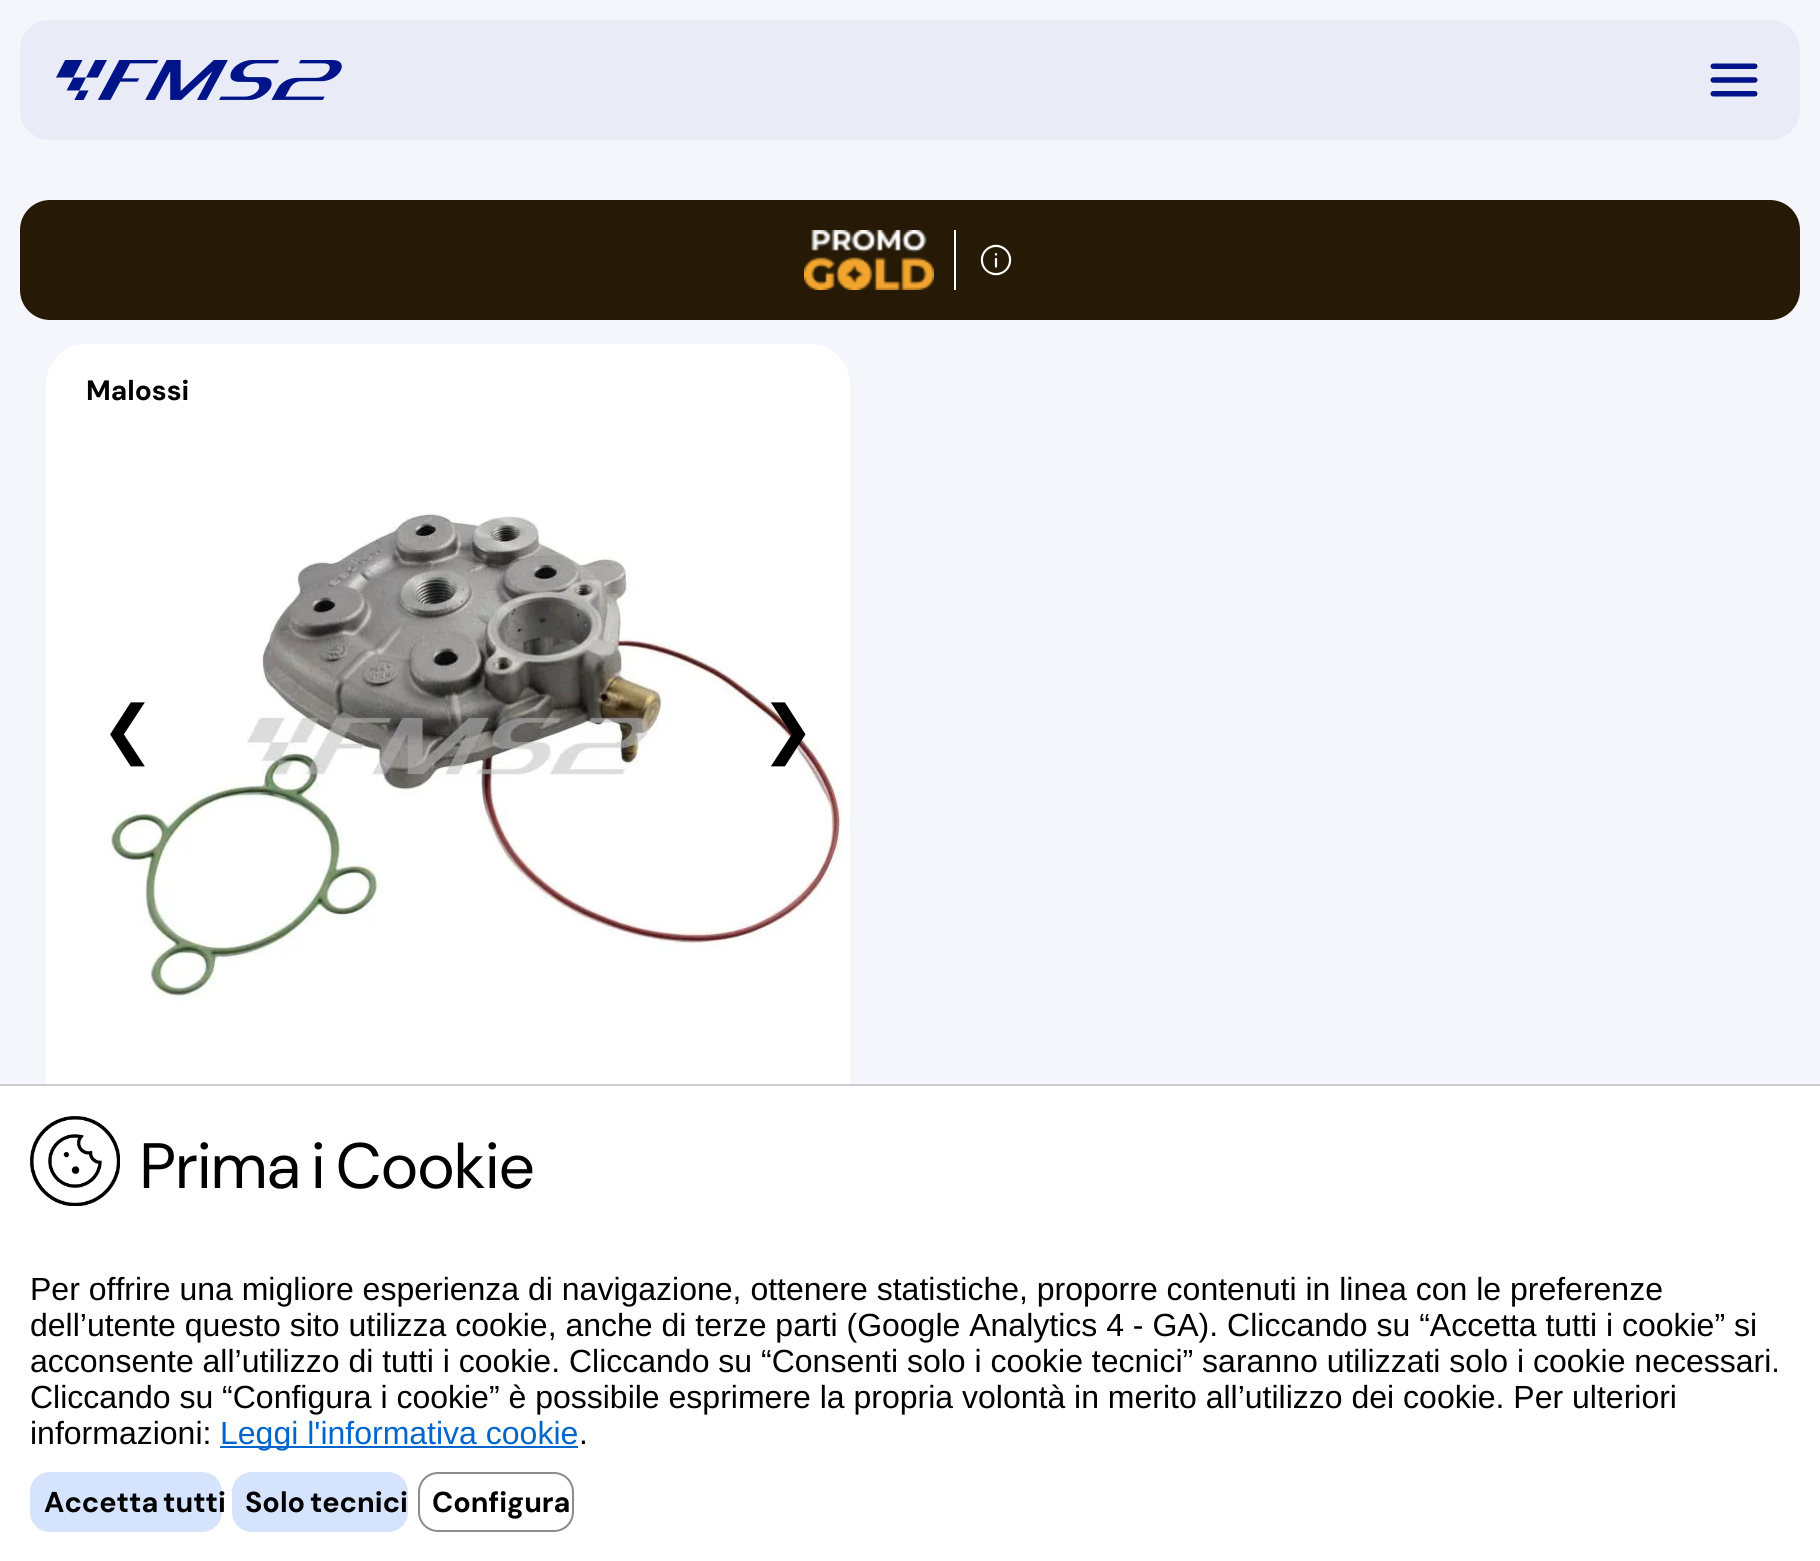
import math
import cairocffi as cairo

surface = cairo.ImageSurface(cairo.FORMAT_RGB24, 1820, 1561)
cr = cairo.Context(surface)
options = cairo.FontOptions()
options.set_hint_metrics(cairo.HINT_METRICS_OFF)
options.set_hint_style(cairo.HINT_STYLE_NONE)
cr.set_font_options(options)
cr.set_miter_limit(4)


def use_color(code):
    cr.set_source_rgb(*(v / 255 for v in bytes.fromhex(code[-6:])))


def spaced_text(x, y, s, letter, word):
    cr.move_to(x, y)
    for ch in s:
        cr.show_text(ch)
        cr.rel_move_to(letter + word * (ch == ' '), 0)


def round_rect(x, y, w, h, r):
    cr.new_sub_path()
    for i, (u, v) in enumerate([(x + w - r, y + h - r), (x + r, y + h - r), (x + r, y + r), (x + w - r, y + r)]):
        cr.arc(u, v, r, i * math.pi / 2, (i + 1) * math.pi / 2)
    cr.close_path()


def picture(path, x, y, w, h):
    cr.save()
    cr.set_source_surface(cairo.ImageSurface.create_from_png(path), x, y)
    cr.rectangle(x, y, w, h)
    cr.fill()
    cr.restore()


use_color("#f4f6fc")
cr.paint()
use_color("#e9ebf6")
round_rect(20, 20, 1780, 120, 30)
cr.fill()
picture("img1.png", 56, 60, 286, 40)
picture("img2.png", 1710, 63, 48, 34)
use_color("#261a07")
round_rect(20, 200, 1780, 120, 30)
cr.fill()
picture("img3.png", 804, 230, 130, 60)
use_color("#ffffff")
cr.rectangle(954, 230, 2, 60)
cr.fill()
picture("img4.png", 980, 244, 32, 32)
picture("img5.png", 46, 344, 804, 740)
cr.select_font_face("DM Sans", cairo.FONT_SLANT_NORMAL, cairo.FONT_WEIGHT_BOLD)
cr.set_font_size(28)
use_color("#000000")
cr.move_to(86, 400)
cr.show_text("Malossi")
cr.select_font_face("DejaVu Sans")
cr.set_font_size(64)
cr.move_to(101, 751)
cr.show_text("❮")
cr.move_to(761, 751)
cr.show_text("❯")
use_color("#ffffff")
cr.rectangle(0, 1086, 1820, 475)
cr.fill()
use_color("#cccccc")
cr.rectangle(0, 1084, 1820, 2)
cr.fill()
picture("img6.png", 30, 1116, 90, 90)
cr.select_font_face("DM Sans")
use_color("#000000")
spaced_text(140, 1188, "Prima i Cookie", 0, -4)
cr.select_font_face("Liberation Sans")
cr.set_font_size(32)
cr.move_to(30, 1300)
cr.show_text("Per offrire una migliore esperienza di navigazione, ottenere statistiche, proporre contenuti in linea con le preferenze")
cr.move_to(30, 1336)
cr.show_text("dell’utente questo sito utilizza cookie, anche di terze parti (Google Analytics 4 - GA). Cliccando su “Accetta tutti i cookie” si")
cr.move_to(30, 1372)
cr.show_text("acconsente all’utilizzo di tutti i cookie. Cliccando su “Consenti solo i cookie tecnici” saranno utilizzati solo i cookie necessari.")
cr.move_to(30, 1408)
cr.show_text("Cliccando su “Configura i cookie” è possibile esprimere la propria volontà in merito all’utilizzo dei cookie. Per ulteriori")
cr.move_to(30, 1444)
cr.show_text("informazioni:")
use_color("#0066cc")
cr.rectangle(220, 1446, 358, 2)
cr.fill()
cr.move_to(220, 1444)
cr.show_text("Leggi l'informativa cookie")
use_color("#000000")
cr.move_to(579, 1444)
cr.show_text(".")
use_color("#d6e3fc")
round_rect(31, 1473, 190, 58, 19)
cr.fill_preserve()
cr.stroke()
cr.select_font_face("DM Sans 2", cairo.FONT_SLANT_NORMAL, cairo.FONT_WEIGHT_BOLD)
cr.set_font_size(28.75)
use_color("#000000")
spaced_text(44, 1512, "Accetta tutti", 0, -2)
use_color("#d6e3fc")
round_rect(233, 1473, 174, 58, 19)
cr.fill_preserve()
cr.stroke()
use_color("#000000")
spaced_text(245, 1512, "Solo tecnici", 0, -2)
round_rect(419, 1473, 154, 58, 19)
use_color("#8b8b8b")
cr.stroke()
use_color("#000000")
cr.move_to(432, 1512)
cr.show_text("Configura")
surface.write_to_png("result.png")
